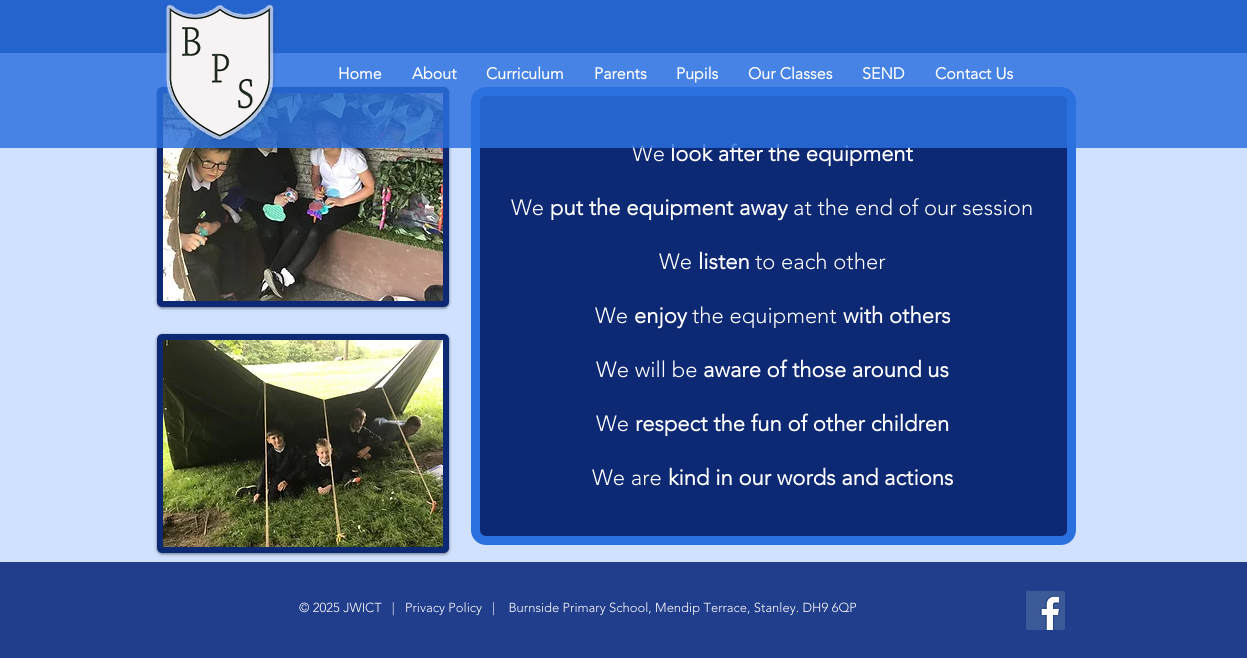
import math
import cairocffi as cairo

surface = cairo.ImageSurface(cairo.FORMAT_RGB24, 1247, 658)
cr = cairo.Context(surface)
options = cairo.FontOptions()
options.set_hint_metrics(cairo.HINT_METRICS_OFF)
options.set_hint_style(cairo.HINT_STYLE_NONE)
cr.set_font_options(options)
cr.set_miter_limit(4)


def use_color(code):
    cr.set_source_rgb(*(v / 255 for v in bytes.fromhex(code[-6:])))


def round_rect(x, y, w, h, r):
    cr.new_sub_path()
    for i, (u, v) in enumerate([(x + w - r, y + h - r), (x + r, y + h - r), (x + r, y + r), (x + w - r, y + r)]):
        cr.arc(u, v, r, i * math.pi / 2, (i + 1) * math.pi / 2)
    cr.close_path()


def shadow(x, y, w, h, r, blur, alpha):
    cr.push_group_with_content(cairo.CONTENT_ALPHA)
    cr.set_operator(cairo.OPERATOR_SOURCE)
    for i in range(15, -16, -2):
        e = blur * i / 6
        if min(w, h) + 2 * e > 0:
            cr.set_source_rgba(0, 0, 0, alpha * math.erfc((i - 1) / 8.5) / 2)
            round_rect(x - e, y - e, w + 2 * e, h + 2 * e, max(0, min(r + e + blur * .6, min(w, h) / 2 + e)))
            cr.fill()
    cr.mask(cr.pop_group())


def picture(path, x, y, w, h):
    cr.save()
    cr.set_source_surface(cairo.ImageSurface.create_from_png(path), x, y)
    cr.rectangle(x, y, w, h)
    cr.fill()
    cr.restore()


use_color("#cfe1ff")
cr.paint()
use_color("#0e2973")
cr.rectangle(0, 0, 1247, 53)
cr.fill()
use_color("#000000")
shadow(157, 88, 292, 220, 5, 1.5, 0.5)
round_rect(160, 90, 286, 214, 2)
use_color("#0e2973")
cr.set_line_width(6)
cr.stroke()
picture("img2.png", 163, 93, 280, 208)
round_rect(475.5, 91.5, 596, 449, 10.5)
cr.fill_preserve()
use_color("#2a70de")
cr.set_line_width(9)
cr.stroke()
cr.select_font_face("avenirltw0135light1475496 Light")
cr.set_font_size(22)
use_color("#ffffff")
cr.move_to(632, 161)
cr.show_text("We")
cr.select_font_face("avenirltw0135light1475496", cairo.FONT_SLANT_NORMAL, cairo.FONT_WEIGHT_BOLD)
cr.move_to(670, 161)
cr.show_text("look after the equipment")
cr.set_source_rgba(0.165, 0.439, 0.871, 0.83)
cr.rectangle(0, 0, 1247, 148)
cr.fill()
picture("img1.png", 166, 4, 110, 137)
cr.set_font_size(16)
use_color("#ffffff")
cr.move_to(338, 79)
cr.show_text("Home")
cr.move_to(412, 79)
cr.show_text("About")
cr.move_to(486, 79)
cr.show_text("Curriculum")
cr.move_to(594, 79)
cr.show_text("Parents")
cr.move_to(676, 79)
cr.show_text("Pupils")
cr.move_to(748, 79)
cr.show_text("Our Classes")
cr.move_to(862, 79)
cr.show_text("SEND")
cr.move_to(935, 79)
cr.show_text("Contact Us")
cr.select_font_face("avenirltw0135light1475496 Light")
cr.set_font_size(22)
cr.move_to(511, 215)
cr.show_text("We")
cr.select_font_face("avenirltw0135light1475496", cairo.FONT_SLANT_NORMAL, cairo.FONT_WEIGHT_BOLD)
cr.move_to(550, 215)
cr.show_text("put the equipment away")
cr.select_font_face("avenirltw0135light1475496 Light")
cr.move_to(793, 215)
cr.show_text("at the end of our session")
cr.move_to(659, 269)
cr.show_text("We")
cr.select_font_face("avenirltw0135light1475496", cairo.FONT_SLANT_NORMAL, cairo.FONT_WEIGHT_BOLD)
cr.move_to(698, 269)
cr.show_text("listen")
cr.select_font_face("avenirltw0135light1475496 Light")
cr.move_to(755, 269)
cr.show_text("to each other")
cr.move_to(595, 323)
cr.show_text("We")
cr.select_font_face("avenirltw0135light1475496", cairo.FONT_SLANT_NORMAL, cairo.FONT_WEIGHT_BOLD)
cr.move_to(634, 323)
cr.show_text("enjoy")
cr.select_font_face("avenirltw0135light1475496 Light")
cr.move_to(692, 323)
cr.show_text("the equipment")
cr.select_font_face("avenirltw0135light1475496", cairo.FONT_SLANT_NORMAL, cairo.FONT_WEIGHT_BOLD)
cr.move_to(843, 323)
cr.show_text("with others")
cr.select_font_face("avenirltw0135light1475496 Light")
cr.move_to(596, 377)
cr.show_text("We will be")
cr.select_font_face("avenirltw0135light1475496", cairo.FONT_SLANT_NORMAL, cairo.FONT_WEIGHT_BOLD)
cr.move_to(703, 377)
cr.show_text("aware of those around us")
cr.select_font_face("avenirltw0135light1475496 Light")
cr.move_to(596, 431)
cr.show_text("We")
cr.select_font_face("avenirltw0135light1475496", cairo.FONT_SLANT_NORMAL, cairo.FONT_WEIGHT_BOLD)
cr.move_to(635, 431)
cr.show_text("respect the fun of other children")
cr.select_font_face("avenirltw0135light1475496 Light")
cr.move_to(592, 485)
cr.show_text("We are")
cr.select_font_face("avenirltw0135light1475496", cairo.FONT_SLANT_NORMAL, cairo.FONT_WEIGHT_BOLD)
cr.move_to(668, 485)
cr.show_text("kind in our words and actions")
use_color("#000000")
shadow(157, 335, 292, 219, 5, 1.5, 0.5)
round_rect(160, 337, 286, 213, 2)
use_color("#0e2973")
cr.set_line_width(6)
cr.stroke()
picture("img3.png", 163, 340, 280, 207)
use_color("#213e8c")
cr.rectangle(0, 562, 1247, 96)
cr.fill()
cr.select_font_face("avenirltw0135light1475496 Light")
cr.set_font_size(13)
use_color("#ffffff")
cr.move_to(299, 612)
cr.show_text("© 2025 JWICT   |")
cr.move_to(405, 612)
cr.show_text("Privacy Policy")
cr.move_to(492, 612)
cr.show_text("|    Burnside Primary School, Mendip Terrace, Stanley. DH9 6QP")
picture("img4.png", 1026, 591, 39, 39)
surface.write_to_png("result.png")
